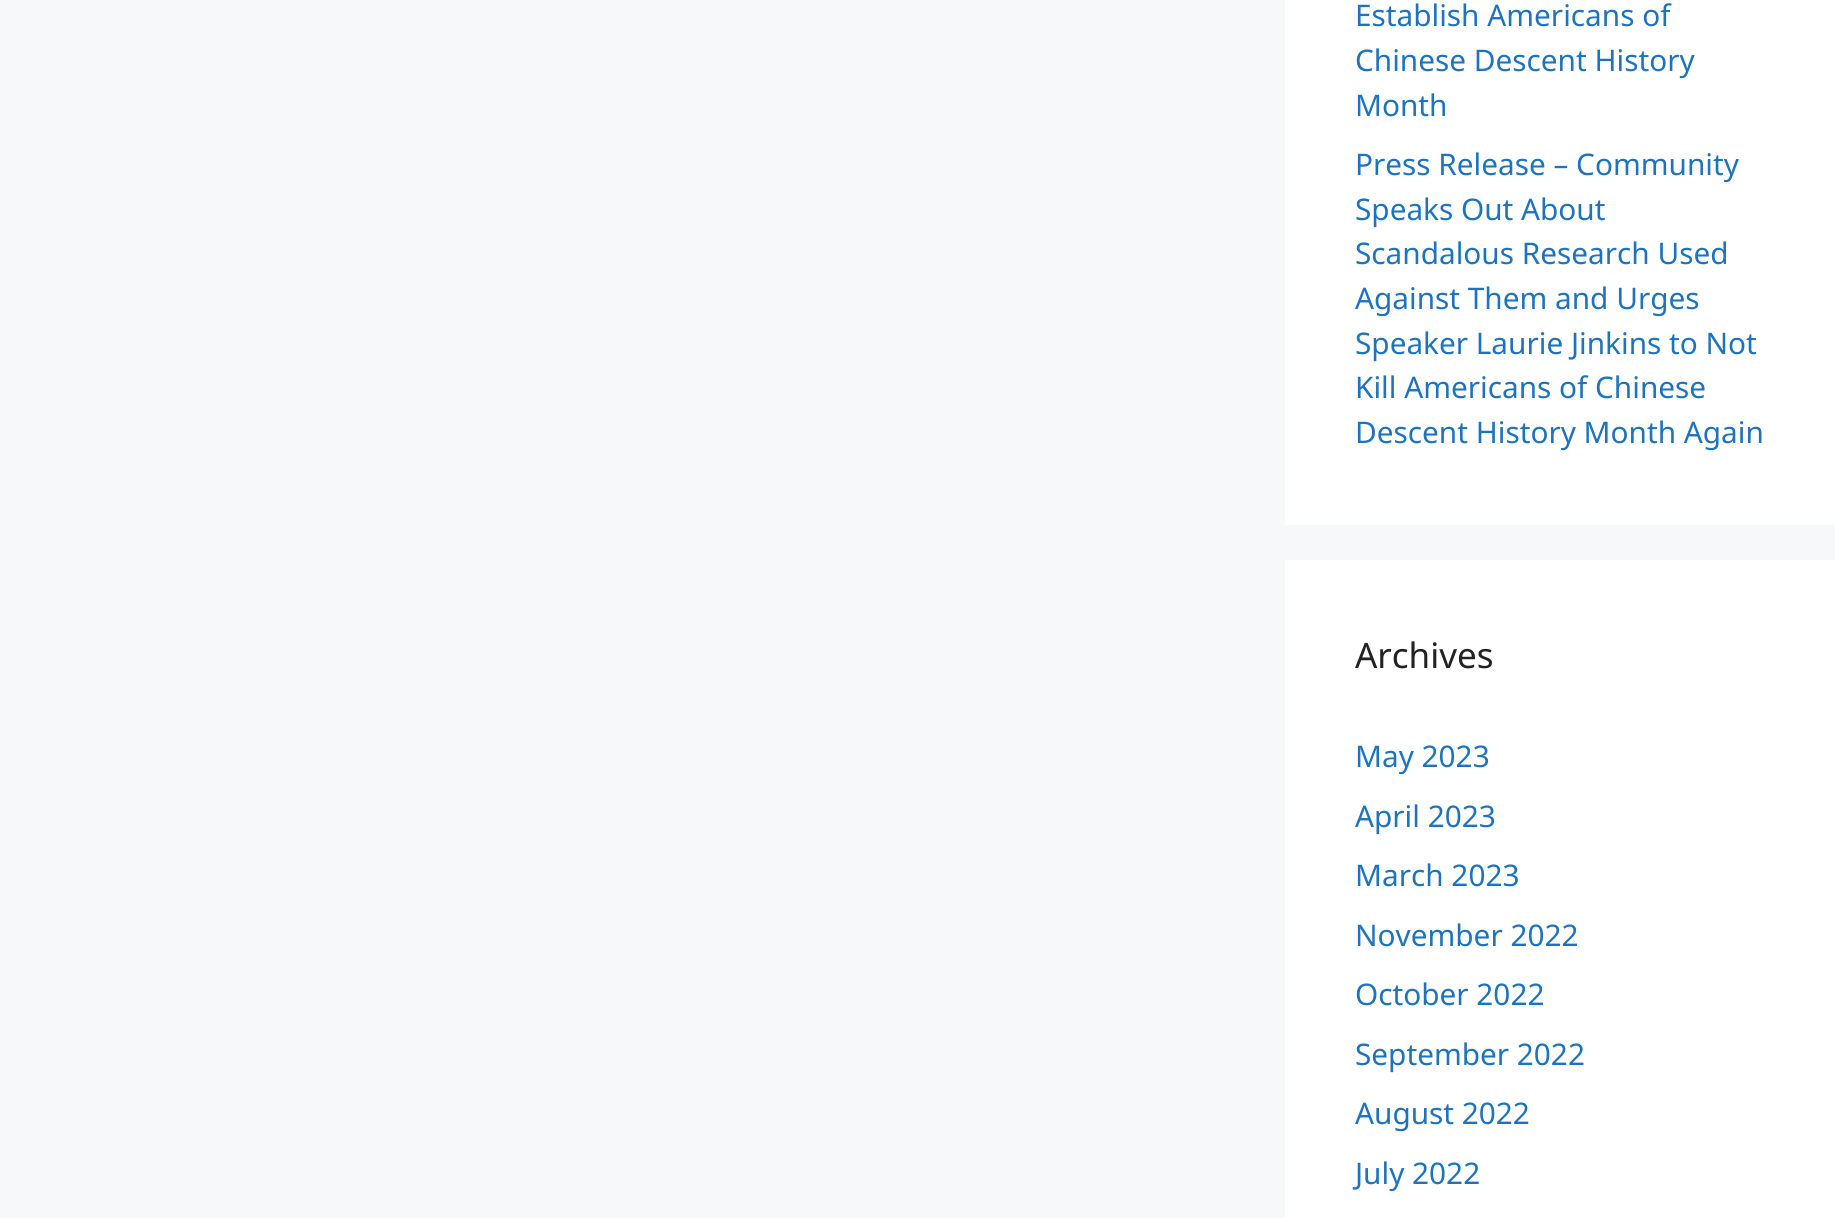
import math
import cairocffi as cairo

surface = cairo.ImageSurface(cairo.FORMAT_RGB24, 1835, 1218)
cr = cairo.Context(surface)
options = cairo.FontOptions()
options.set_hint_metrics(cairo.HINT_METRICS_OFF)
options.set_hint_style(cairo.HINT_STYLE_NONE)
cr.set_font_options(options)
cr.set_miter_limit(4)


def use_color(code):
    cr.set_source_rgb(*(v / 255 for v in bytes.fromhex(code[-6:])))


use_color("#f7f8f9")
cr.paint()
use_color("#ffffff")
cr.rectangle(1285, 0, 550, 525)
cr.fill()
cr.select_font_face("Noto Sans")
cr.set_font_size(29.75)
use_color("#1e73be")
cr.move_to(1355, 26)
cr.show_text("Establish Americans of")
cr.move_to(1355, 71)
cr.show_text("Chinese Descent History")
cr.move_to(1355, 116)
cr.show_text("Month")
cr.move_to(1355, 175)
cr.show_text("Press Release – Community")
cr.move_to(1355, 220)
cr.show_text("Speaks Out About")
cr.move_to(1355, 264)
cr.show_text("Scandalous Research Used")
cr.move_to(1355, 309)
cr.show_text("Against Them and Urges")
cr.move_to(1355, 354)
cr.show_text("Speaker Laurie Jinkins to Not")
cr.move_to(1355, 398)
cr.show_text("Kill Americans of Chinese")
cr.move_to(1355, 443)
cr.show_text("Descent History Month Again")
use_color("#ffffff")
cr.rectangle(1285, 560, 550, 658)
cr.fill()
cr.set_font_size(35)
use_color("#222222")
cr.move_to(1355, 668)
cr.show_text("Archives")
cr.set_font_size(29.75)
use_color("#1e73be")
cr.move_to(1355, 767)
cr.show_text("May 2023")
cr.move_to(1355, 827)
cr.show_text("April 2023")
cr.move_to(1355, 886)
cr.show_text("March 2023")
cr.move_to(1355, 946)
cr.show_text("November 2022")
cr.move_to(1355, 1005)
cr.show_text("October 2022")
cr.move_to(1355, 1065)
cr.show_text("September 2022")
cr.move_to(1355, 1124)
cr.show_text("August 2022")
cr.move_to(1355, 1184)
cr.show_text("July 2022")
surface.write_to_png("result.png")
